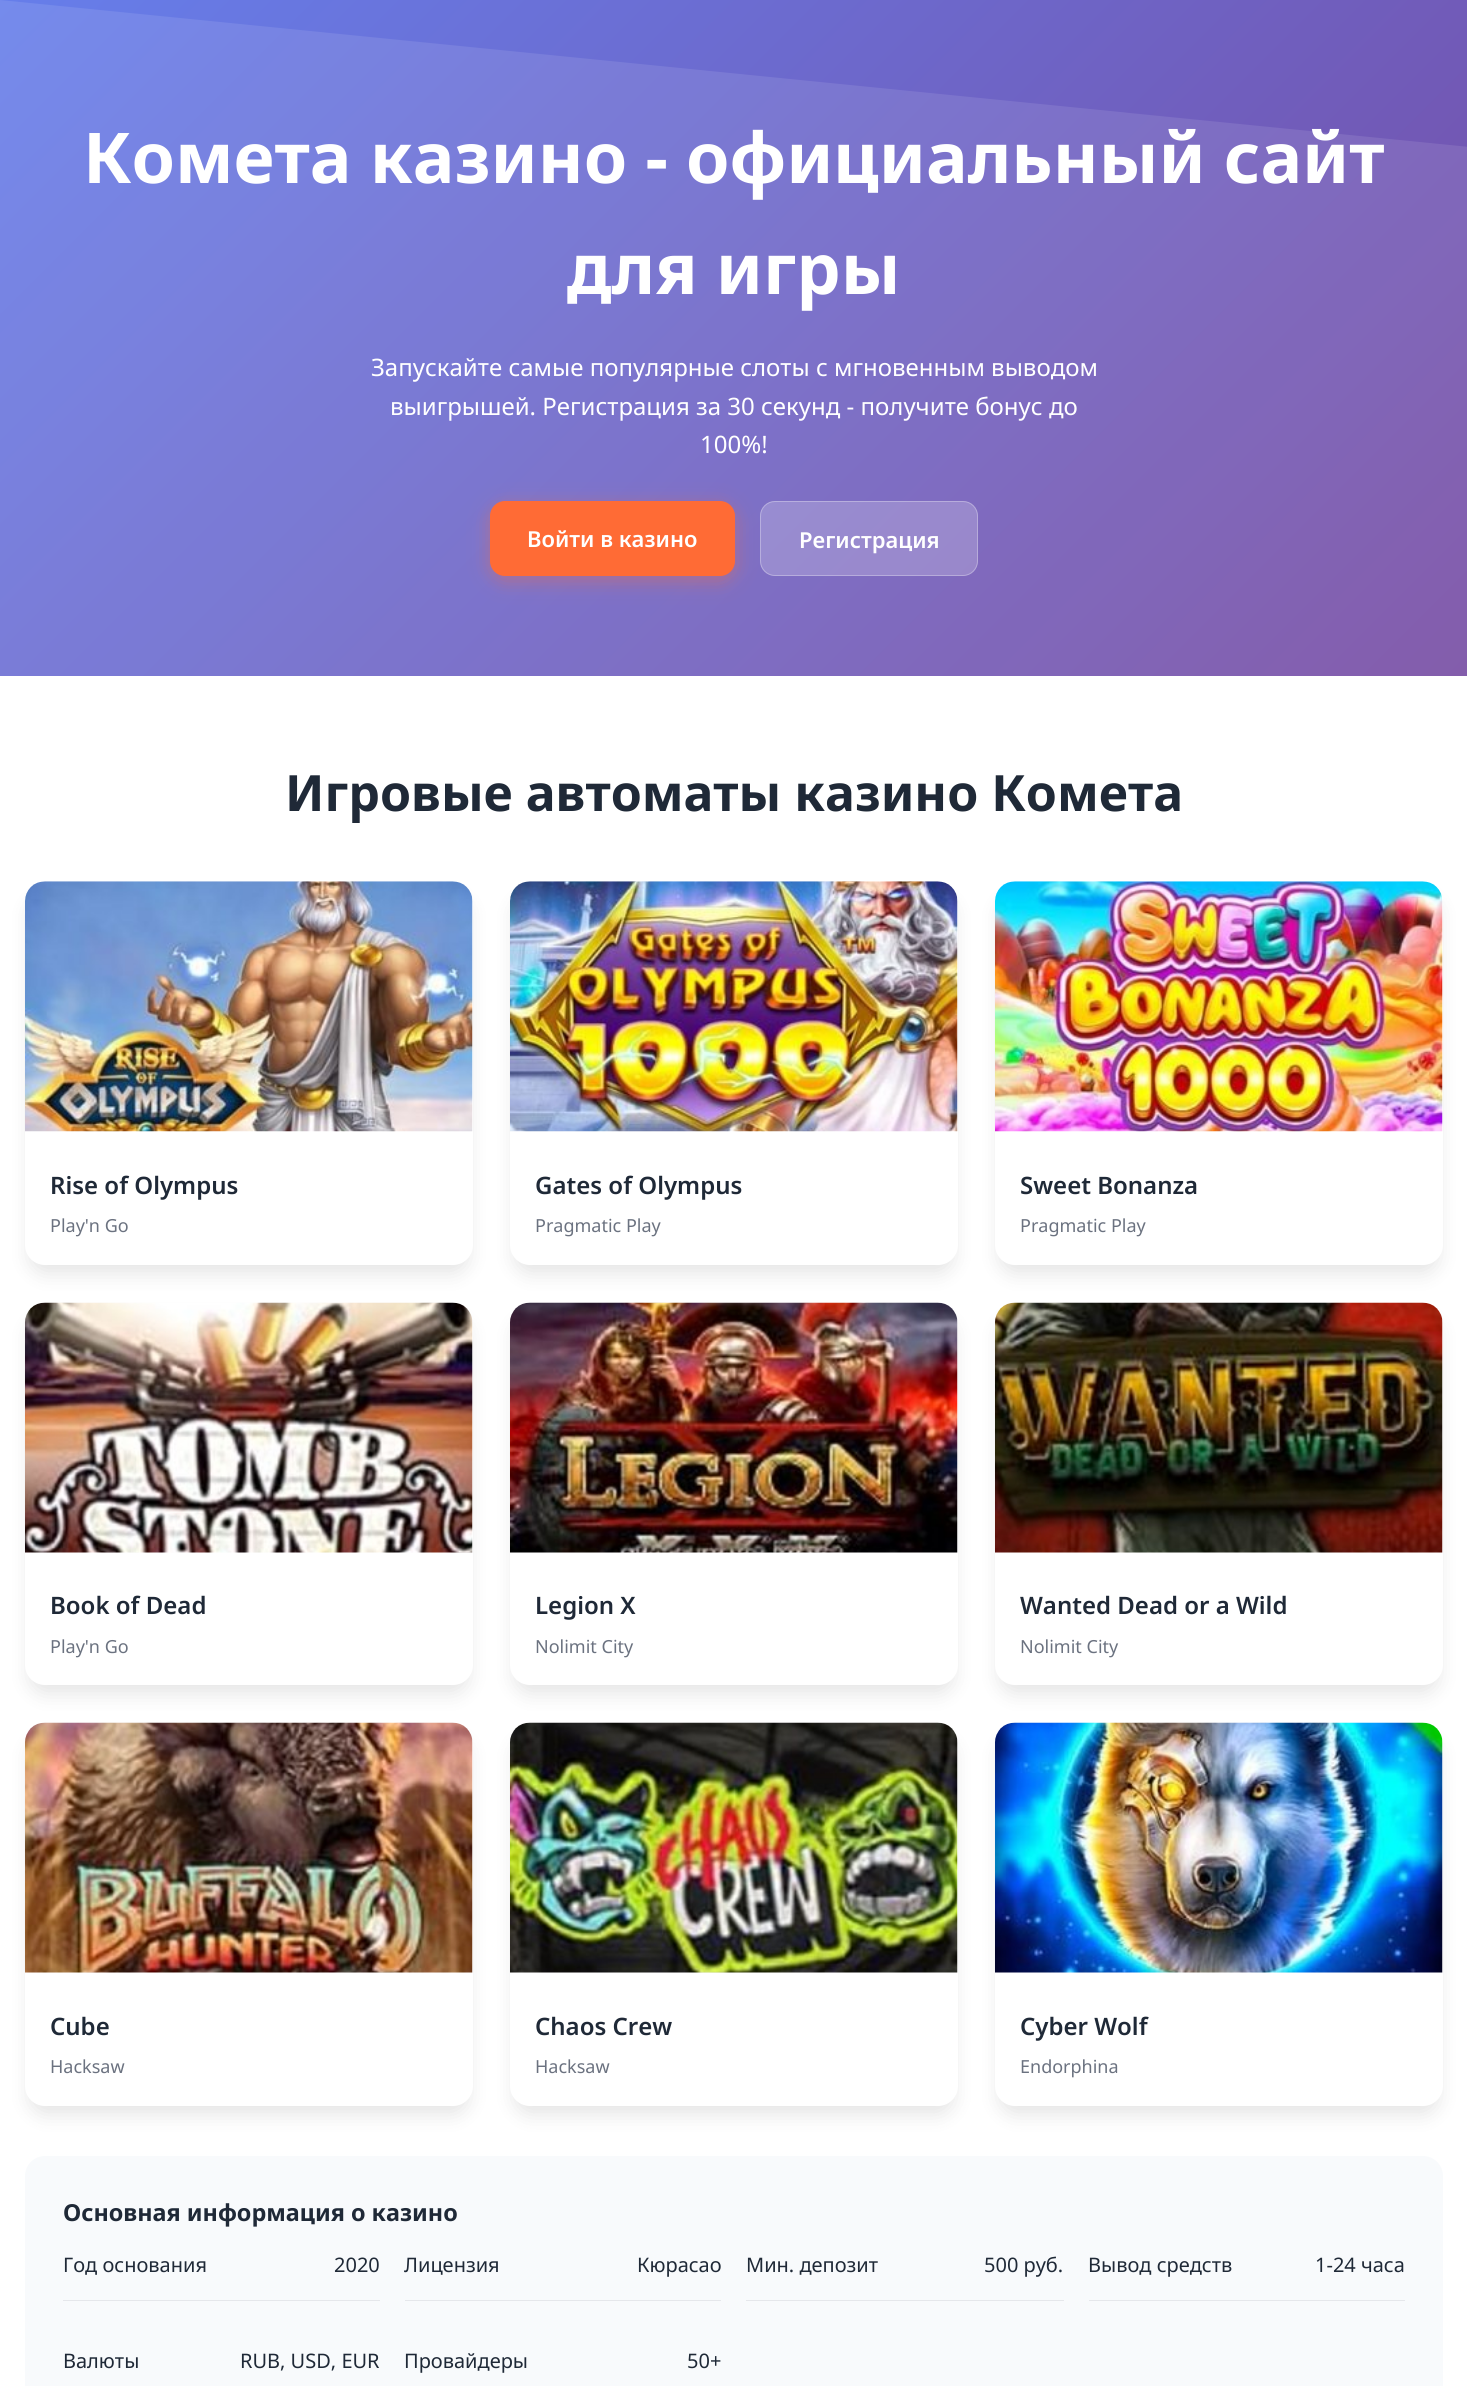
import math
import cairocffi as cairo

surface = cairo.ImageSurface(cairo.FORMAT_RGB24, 1467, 2386)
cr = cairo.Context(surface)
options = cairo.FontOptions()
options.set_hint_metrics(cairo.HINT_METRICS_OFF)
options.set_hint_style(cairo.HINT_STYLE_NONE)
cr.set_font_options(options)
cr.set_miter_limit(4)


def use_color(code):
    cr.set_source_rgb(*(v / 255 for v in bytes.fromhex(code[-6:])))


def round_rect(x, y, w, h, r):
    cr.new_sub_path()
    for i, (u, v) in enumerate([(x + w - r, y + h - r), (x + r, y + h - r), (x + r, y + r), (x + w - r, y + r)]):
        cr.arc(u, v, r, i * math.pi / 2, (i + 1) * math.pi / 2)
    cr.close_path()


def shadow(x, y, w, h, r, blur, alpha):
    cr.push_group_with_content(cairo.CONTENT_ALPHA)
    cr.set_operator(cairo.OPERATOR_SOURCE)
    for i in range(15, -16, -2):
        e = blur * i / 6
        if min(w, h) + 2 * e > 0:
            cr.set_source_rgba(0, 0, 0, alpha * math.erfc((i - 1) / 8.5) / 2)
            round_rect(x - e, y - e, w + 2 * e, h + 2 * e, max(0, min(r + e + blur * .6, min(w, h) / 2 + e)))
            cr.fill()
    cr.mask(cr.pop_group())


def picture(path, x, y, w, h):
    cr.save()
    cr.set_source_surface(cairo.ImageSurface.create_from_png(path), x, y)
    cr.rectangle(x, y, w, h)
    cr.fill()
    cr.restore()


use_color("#ffffff")
cr.paint()
gradient = cairo.LinearGradient(198, -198, 1270, 874)
gradient.add_color_stop_rgba(0, 0.4, 0.494, 0.918, 1)
gradient.add_color_stop_rgba(1, 0.463, 0.294, 0.635, 1)
cr.set_source(gradient)
cr.rectangle(0, 0, 1467, 676)
cr.fill()
cr.save()
cr.rectangle(0, 0, 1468, 676)
cr.clip()
cr.set_source_rgba(1, 1, 1, 0.1)
cr.new_path()
cr.move_to(0, 0)
cr.line_to(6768, 677)
cr.line_to(0, 677)
cr.close_path()
cr.fill()
cr.restore()
cr.select_font_face("Noto Sans", cairo.FONT_SLANT_NORMAL, cairo.FONT_WEIGHT_BOLD)
cr.set_font_size(70)
use_color("#ffffff")
cr.move_to(83, 183)
cr.show_text("Комета казино - официальный сайт")
cr.move_to(567, 294)
cr.show_text("для игры")
cr.select_font_face("Noto Sans")
cr.set_font_size(24)
cr.move_to(371, 376)
cr.show_text("Запускайте самые популярные слоты с мгновенным выводом")
cr.move_to(390, 415)
cr.show_text("выигрышей. Регистрация за 30 секунд - получите бонус до")
cr.move_to(700, 453)
cr.show_text("100%!")
use_color("#ff6b35")
shadow(490, 506, 245, 75, 15, 9.5, 0.4)
use_color("#ff6b35")
round_rect(490, 501, 245, 75, 15)
cr.fill()
cr.select_font_face("Noto Sans SemiBold")
cr.set_font_size(22)
use_color("#ffffff")
cr.move_to(527, 547)
cr.show_text("Войти в казино")
cr.set_source_rgba(1, 1, 1, 0.2)
round_rect(760, 501, 218, 75, 15)
cr.fill()
round_rect(760.5, 501.5, 217, 74, 14.5)
cr.set_source_rgba(1, 1, 1, 0.3)
cr.set_line_width(1)
cr.stroke()
use_color("#ffffff")
cr.move_to(799, 548)
cr.show_text("Регистрация")
cr.select_font_face("Noto Sans", cairo.FONT_SLANT_NORMAL, cairo.FONT_WEIGHT_BOLD)
cr.set_font_size(50)
use_color("#1f2937")
cr.move_to(285, 811)
cr.show_text("Игровые автоматы казино Комета")
use_color("#000000")
shadow(29, 898, 440, 376, 16, 9.5, 0.1)
use_color("#ffffff")
round_rect(25, 881, 448, 384, 20)
cr.fill()
picture("img1.png", 25, 881, 448, 251)
cr.select_font_face("Noto Sans SemiBold")
cr.set_font_size(24)
use_color("#1f2937")
cr.move_to(50, 1194)
cr.show_text("Rise of Olympus")
cr.select_font_face("Noto Sans")
cr.set_font_size(18)
use_color("#6b7280")
cr.move_to(50, 1232)
cr.show_text("Play'n Go")
use_color("#000000")
shadow(514, 898, 440, 376, 16, 9.5, 0.1)
use_color("#ffffff")
round_rect(510, 881, 448, 384, 20)
cr.fill()
picture("img2.png", 510, 881, 448, 251)
cr.select_font_face("Noto Sans SemiBold")
cr.set_font_size(24)
use_color("#1f2937")
cr.move_to(535, 1194)
cr.show_text("Gates of Olympus")
cr.select_font_face("Noto Sans")
cr.set_font_size(18)
use_color("#6b7280")
cr.move_to(535, 1232)
cr.show_text("Pragmatic Play")
use_color("#000000")
shadow(999, 898, 440, 376, 16, 9.5, 0.1)
use_color("#ffffff")
round_rect(995, 881, 448, 384, 20)
cr.fill()
picture("img3.png", 995, 881, 448, 251)
cr.select_font_face("Noto Sans SemiBold")
cr.set_font_size(24)
use_color("#1f2937")
cr.move_to(1020, 1194)
cr.show_text("Sweet Bonanza")
cr.select_font_face("Noto Sans")
cr.set_font_size(18)
use_color("#6b7280")
cr.move_to(1020, 1232)
cr.show_text("Pragmatic Play")
use_color("#000000")
shadow(29, 1319, 440, 375, 16, 9.5, 0.1)
use_color("#ffffff")
round_rect(25, 1303, 448, 382, 20)
cr.fill()
picture("img4.png", 25, 1302, 448, 251)
cr.select_font_face("Noto Sans SemiBold")
cr.set_font_size(24)
use_color("#1f2937")
cr.move_to(50, 1614)
cr.show_text("Book of Dead")
cr.select_font_face("Noto Sans")
cr.set_font_size(18)
use_color("#6b7280")
cr.move_to(50, 1653)
cr.show_text("Play'n Go")
use_color("#000000")
shadow(514, 1319, 440, 375, 16, 9.5, 0.1)
use_color("#ffffff")
round_rect(510, 1303, 448, 382, 20)
cr.fill()
picture("img5.png", 510, 1302, 448, 251)
cr.select_font_face("Noto Sans SemiBold")
cr.set_font_size(24)
use_color("#1f2937")
cr.move_to(535, 1614)
cr.show_text("Legion X")
cr.select_font_face("Noto Sans")
cr.set_font_size(18)
use_color("#6b7280")
cr.move_to(535, 1653)
cr.show_text("Nolimit City")
use_color("#000000")
shadow(999, 1319, 440, 375, 16, 9.5, 0.1)
use_color("#ffffff")
round_rect(995, 1303, 448, 382, 20)
cr.fill()
picture("img6.png", 995, 1302, 448, 251)
cr.select_font_face("Noto Sans SemiBold")
cr.set_font_size(24)
use_color("#1f2937")
cr.move_to(1020, 1614)
cr.show_text("Wanted Dead or a Wild")
cr.select_font_face("Noto Sans")
cr.set_font_size(18)
use_color("#6b7280")
cr.move_to(1020, 1653)
cr.show_text("Nolimit City")
use_color("#000000")
shadow(29, 1739, 440, 376, 16, 9.5, 0.1)
use_color("#ffffff")
round_rect(25, 1723, 448, 383, 20)
cr.fill()
picture("img7.png", 25, 1722, 448, 251)
cr.select_font_face("Noto Sans SemiBold")
cr.set_font_size(24)
use_color("#1f2937")
cr.move_to(50, 2035)
cr.show_text("Cube")
cr.select_font_face("Noto Sans")
cr.set_font_size(18)
use_color("#6b7280")
cr.move_to(50, 2073)
cr.show_text("Hacksaw")
use_color("#000000")
shadow(514, 1739, 440, 376, 16, 9.5, 0.1)
use_color("#ffffff")
round_rect(510, 1723, 448, 383, 20)
cr.fill()
picture("img8.png", 510, 1722, 448, 251)
cr.select_font_face("Noto Sans SemiBold")
cr.set_font_size(24)
use_color("#1f2937")
cr.move_to(535, 2035)
cr.show_text("Chaos Crew")
cr.select_font_face("Noto Sans")
cr.set_font_size(18)
use_color("#6b7280")
cr.move_to(535, 2073)
cr.show_text("Hacksaw")
use_color("#000000")
shadow(999, 1739, 440, 376, 16, 9.5, 0.1)
use_color("#ffffff")
round_rect(995, 1723, 448, 383, 20)
cr.fill()
picture("img9.png", 995, 1722, 448, 251)
cr.select_font_face("Noto Sans SemiBold")
cr.set_font_size(24)
use_color("#1f2937")
cr.move_to(1020, 2035)
cr.show_text("Cyber Wolf")
cr.select_font_face("Noto Sans")
cr.set_font_size(18)
use_color("#6b7280")
cr.move_to(1020, 2073)
cr.show_text("Endorphina")
use_color("#f8fafc")
round_rect(25, 2156, 1418, 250, 20)
cr.fill()
cr.select_font_face("Noto Sans", cairo.FONT_SLANT_NORMAL, cairo.FONT_WEIGHT_BOLD)
cr.set_font_size(23.4)
use_color("#1f2937")
cr.move_to(63, 2221)
cr.show_text("Основная информация о казино")
use_color("#e5e7eb")
cr.rectangle(63, 2300, 317, 1)
cr.fill()
cr.select_font_face("Noto Sans")
cr.set_font_size(20)
use_color("#1f2937")
cr.move_to(63, 2272)
cr.show_text("Год основания")
cr.move_to(334, 2272)
cr.show_text("2020")
use_color("#e5e7eb")
cr.rectangle(405, 2300, 316, 1)
cr.fill()
use_color("#1f2937")
cr.move_to(404, 2272)
cr.show_text("Лицензия")
cr.move_to(637, 2272)
cr.show_text("Кюрасао")
use_color("#e5e7eb")
cr.rectangle(746, 2300, 318, 1)
cr.fill()
use_color("#1f2937")
cr.move_to(746, 2272)
cr.show_text("Мин. депозит")
cr.move_to(984, 2272)
cr.show_text("500 руб.")
use_color("#e5e7eb")
cr.rectangle(1089, 2300, 316, 1)
cr.fill()
use_color("#1f2937")
cr.move_to(1088, 2272)
cr.show_text("Вывод средств")
cr.move_to(1315, 2272)
cr.show_text("1-24 часа")
cr.move_to(63, 2368)
cr.show_text("Валюты")
cr.move_to(240, 2368)
cr.show_text("RUB, USD, EUR")
cr.move_to(404, 2368)
cr.show_text("Провайдеры")
cr.move_to(687, 2368)
cr.show_text("50+")
surface.write_to_png("result.png")
